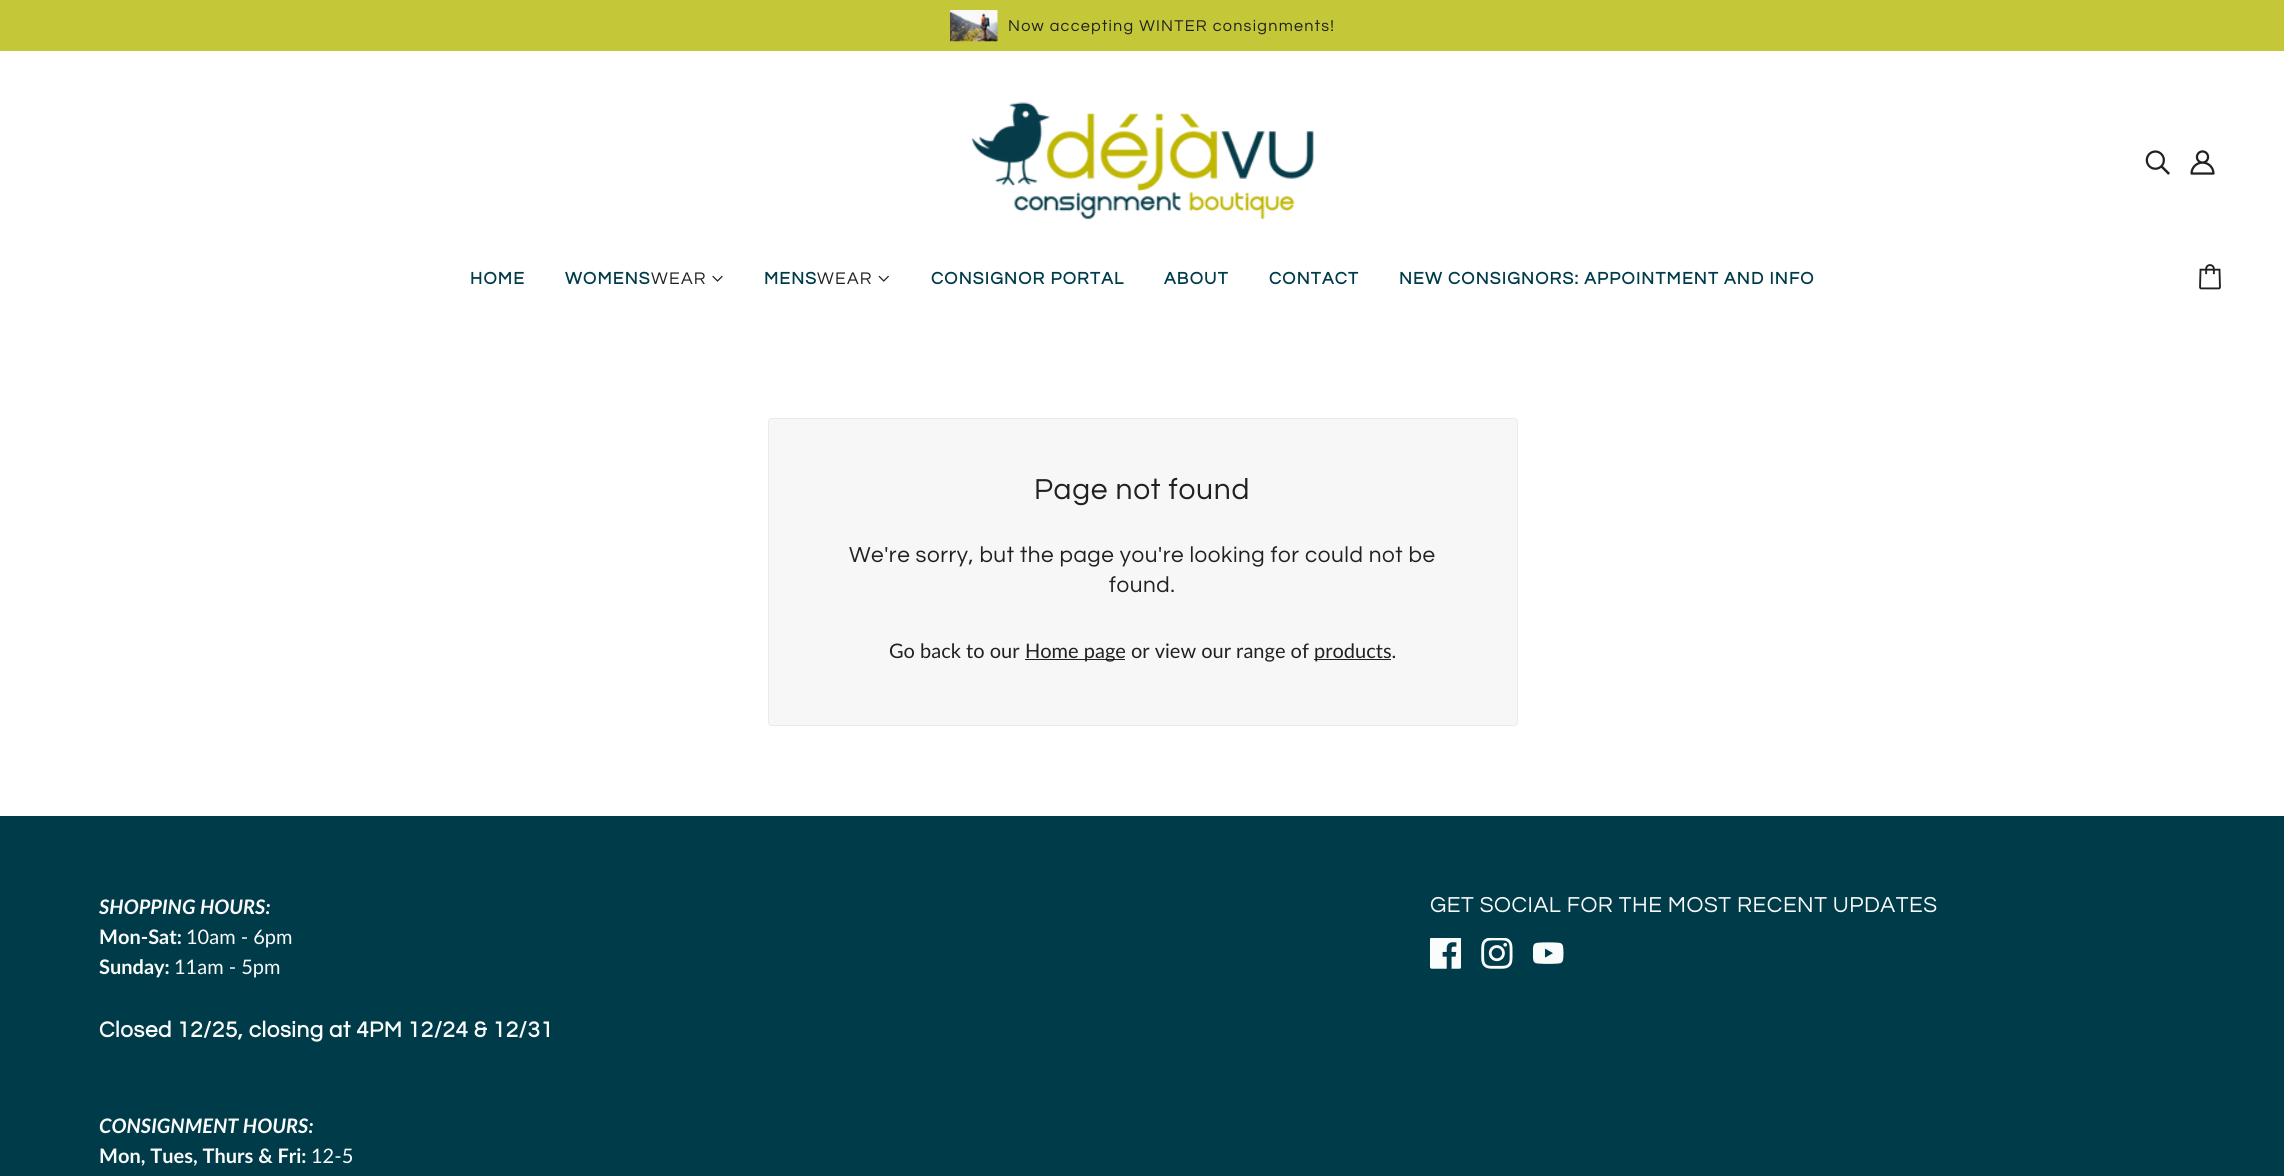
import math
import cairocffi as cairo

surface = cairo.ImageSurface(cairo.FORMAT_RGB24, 2284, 1176)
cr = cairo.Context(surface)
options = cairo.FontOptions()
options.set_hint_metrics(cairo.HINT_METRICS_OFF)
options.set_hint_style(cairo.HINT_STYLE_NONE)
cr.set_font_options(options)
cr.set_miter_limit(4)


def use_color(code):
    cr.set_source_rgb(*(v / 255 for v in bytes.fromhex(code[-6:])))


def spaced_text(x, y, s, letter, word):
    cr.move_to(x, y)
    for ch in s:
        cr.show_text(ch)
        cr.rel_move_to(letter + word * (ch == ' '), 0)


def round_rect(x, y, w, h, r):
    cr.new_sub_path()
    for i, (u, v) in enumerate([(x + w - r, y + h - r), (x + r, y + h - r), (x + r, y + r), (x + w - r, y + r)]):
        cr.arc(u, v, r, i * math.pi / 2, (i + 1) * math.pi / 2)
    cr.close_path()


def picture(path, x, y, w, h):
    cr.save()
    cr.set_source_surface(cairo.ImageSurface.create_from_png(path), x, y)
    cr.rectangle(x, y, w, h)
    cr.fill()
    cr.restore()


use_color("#ffffff")
cr.paint()
use_color("#c3c738")
cr.rectangle(0, 0, 2284, 51)
cr.fill()
picture("img1.png", 950, 10, 48, 32)
cr.select_font_face("Questrial")
cr.set_font_size(16.25)
use_color("#212121")
spaced_text(1008, 31, "Now accepting WINTER consignments!", 1.25, 0)
picture("img2.png", 971, 102, 343, 118)
picture("img3.png", 2145, 150, 25, 25)
picture("img4.png", 2190, 150, 25, 25)
cr.select_font_face("Questrial", cairo.FONT_SLANT_NORMAL, cairo.FONT_WEIGHT_BOLD)
cr.set_font_size(17.5)
use_color("#003b4a")
spaced_text(470, 284, "HOME", 1.25, 0)
spaced_text(565, 284, "WOMENS", 1.25, 0)
cr.select_font_face("Questrial")
use_color("#212121")
spaced_text(651, 284, "WEAR", 1.25, 0)
picture("img5.png", 712, 275, 11, 7)
cr.select_font_face("Questrial", cairo.FONT_SLANT_NORMAL, cairo.FONT_WEIGHT_BOLD)
use_color("#003b4a")
spaced_text(764, 284, "MENS", 1.25, 0)
cr.select_font_face("Questrial")
use_color("#212121")
spaced_text(817, 284, "WEAR", 1.25, 0)
picture("img6.png", 878, 275, 11, 7)
cr.select_font_face("Questrial", cairo.FONT_SLANT_NORMAL, cairo.FONT_WEIGHT_BOLD)
use_color("#003b4a")
spaced_text(931, 284, "CONSIGNOR PORTAL", 1.25, 0)
spaced_text(1164, 284, "ABOUT", 1.25, 0)
spaced_text(1269, 284, "CONTACT", 1.25, 0)
spaced_text(1399, 284, "NEW CONSIGNORS: APPOINTMENT AND INFO", 1.25, 0)
picture("img7.png", 2199, 264, 22, 26)
use_color("#f7f7f7")
round_rect(768.5, 418.5, 749, 307, 3.5)
cr.fill_preserve()
use_color("#eaeaea")
cr.set_line_width(1)
cr.stroke()
cr.select_font_face("Questrial")
cr.set_font_size(30)
use_color("#212121")
spaced_text(1034, 499, "Page not found", 0.75, 0)
cr.set_font_size(22.5)
spaced_text(849, 562, "We're sorry, but the page you're looking for could not be", 0.55, 0)
spaced_text(1109, 592, "found.", 0.55, 0)
cr.select_font_face("Lato")
cr.set_font_size(20)
cr.move_to(889, 658)
cr.show_text("Go back to our")
cr.rectangle(1025, 659, 100, 1)
cr.fill()
cr.move_to(1025, 658)
cr.show_text("Home page or view our range of")
cr.rectangle(1314, 659, 77, 1)
cr.fill()
cr.move_to(1314, 658)
cr.show_text("products.")
use_color("#003b4a")
cr.rectangle(0, 816, 2284, 360)
cr.fill()
cr.select_font_face("Lato", cairo.FONT_SLANT_ITALIC, cairo.FONT_WEIGHT_BOLD)
use_color("#fafbfb")
cr.move_to(99, 914)
cr.show_text("SHOPPING HOURS:")
cr.select_font_face("Lato", cairo.FONT_SLANT_NORMAL, cairo.FONT_WEIGHT_BOLD)
cr.move_to(99, 944)
cr.show_text("Mon-Sat:")
cr.select_font_face("Lato")
cr.move_to(186, 944)
cr.show_text("10am - 6pm")
cr.select_font_face("Lato", cairo.FONT_SLANT_NORMAL, cairo.FONT_WEIGHT_BOLD)
cr.move_to(99, 974)
cr.show_text("Sunday:")
cr.select_font_face("Lato")
cr.move_to(174, 974)
cr.show_text("11am - 5pm")
cr.select_font_face("Questrial", cairo.FONT_SLANT_NORMAL, cairo.FONT_WEIGHT_BOLD)
cr.set_font_size(22.5)
spaced_text(99, 1037, "Closed 12/25, closing at 4PM 12/24 & 12/31", 0.55, 0)
cr.select_font_face("Lato", cairo.FONT_SLANT_ITALIC, cairo.FONT_WEIGHT_BOLD)
cr.set_font_size(20)
cr.move_to(99, 1133)
cr.show_text("CONSIGNMENT HOURS:")
cr.select_font_face("Lato", cairo.FONT_SLANT_NORMAL, cairo.FONT_WEIGHT_BOLD)
cr.move_to(99, 1163)
cr.show_text("Mon, Tues, Thurs & Fri:")
cr.select_font_face("Lato")
cr.move_to(311, 1163)
cr.show_text("12-5")
cr.select_font_face("Questrial")
cr.set_font_size(22.5)
spaced_text(1430, 912, "GET SOCIAL FOR THE MOST RECENT UPDATES", 0.55, 0)
picture("img8.png", 1430, 938, 31, 31)
picture("img9.png", 1481, 938, 32, 31)
picture("img10.png", 1533, 942, 31, 22)
surface.write_to_png("result.png")
